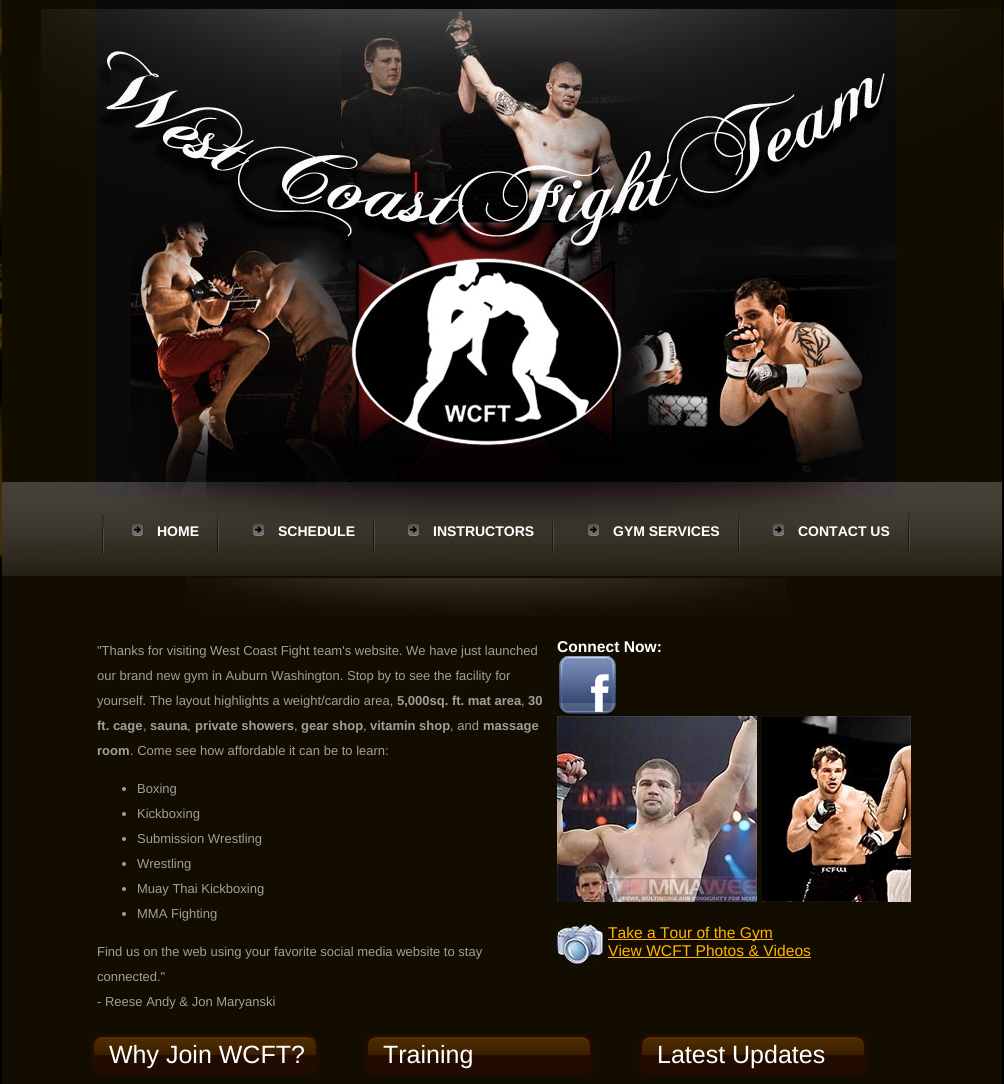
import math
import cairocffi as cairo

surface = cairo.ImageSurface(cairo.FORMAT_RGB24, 1004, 1084)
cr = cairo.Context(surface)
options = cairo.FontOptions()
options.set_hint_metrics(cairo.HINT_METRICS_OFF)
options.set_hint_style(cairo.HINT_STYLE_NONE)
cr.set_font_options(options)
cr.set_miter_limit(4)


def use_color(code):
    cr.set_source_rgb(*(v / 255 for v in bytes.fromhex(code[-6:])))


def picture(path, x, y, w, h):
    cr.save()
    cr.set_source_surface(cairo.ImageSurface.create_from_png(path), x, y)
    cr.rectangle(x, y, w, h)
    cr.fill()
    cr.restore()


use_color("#ffffff")
cr.paint()
picture("img1.png", 0, 0, 1004, 1084)
picture("img2.png", 2, 0, 1000, 578)
picture("img3.png", 102, 515, 2, 39)
picture("img4.png", 132, 523, 12, 13)
cr.select_font_face("Liberation Sans", cairo.FONT_SLANT_NORMAL, cairo.FONT_WEIGHT_BOLD)
cr.set_font_size(14)
use_color("#ffffff")
cr.move_to(157, 536)
cr.show_text("HOME")
picture("img5.png", 217, 514, 2, 40)
picture("img6.png", 253, 524, 11, 12)
cr.move_to(278, 536)
cr.show_text("SCHEDULE")
picture("img7.png", 373, 516, 2, 38)
picture("img6.png", 408, 524, 11, 12)
cr.move_to(433, 536)
cr.show_text("INSTRUCTORS")
picture("img8.png", 552, 517, 2, 37)
picture("img6.png", 588, 524, 11, 12)
cr.move_to(613, 536)
cr.show_text("GYM SERVICES")
picture("img5.png", 738, 514, 2, 40)
picture("img6.png", 773, 524, 11, 12)
cr.move_to(798, 536)
cr.show_text("CONTACT US")
picture("img5.png", 908, 514, 2, 40)
use_color("#120d00")
cr.rectangle(2, 578, 1000, 506)
cr.fill()
picture("img9.png", 186, 578, 600, 38)
cr.select_font_face("Liberation Sans")
cr.set_font_size(13)
use_color("#a09e99")
cr.move_to(97, 655)
cr.show_text("\"Thanks for visiting West Coast Fight team's website. We have just launched")
cr.move_to(97, 680)
cr.show_text("our brand new gym in Auburn Washington. Stop by to see the facility for")
cr.move_to(97, 705)
cr.show_text("yourself. The layout highlights a weight/cardio area,")
cr.select_font_face("Liberation Sans", cairo.FONT_SLANT_NORMAL, cairo.FONT_WEIGHT_BOLD)
cr.move_to(397, 705)
cr.show_text("5,000sq. ft. mat area")
cr.select_font_face("Liberation Sans")
cr.move_to(521, 705)
cr.show_text(",")
cr.select_font_face("Liberation Sans", cairo.FONT_SLANT_NORMAL, cairo.FONT_WEIGHT_BOLD)
cr.move_to(528, 705)
cr.show_text("30")
cr.move_to(97, 730)
cr.show_text("ft. cage")
cr.select_font_face("Liberation Sans")
cr.move_to(143, 730)
cr.show_text(",")
cr.select_font_face("Liberation Sans", cairo.FONT_SLANT_NORMAL, cairo.FONT_WEIGHT_BOLD)
cr.move_to(150, 730)
cr.show_text("sauna")
cr.select_font_face("Liberation Sans")
cr.move_to(187, 730)
cr.show_text(",")
cr.select_font_face("Liberation Sans", cairo.FONT_SLANT_NORMAL, cairo.FONT_WEIGHT_BOLD)
cr.move_to(195, 730)
cr.show_text("private showers")
cr.select_font_face("Liberation Sans")
cr.move_to(294, 730)
cr.show_text(",")
cr.select_font_face("Liberation Sans", cairo.FONT_SLANT_NORMAL, cairo.FONT_WEIGHT_BOLD)
cr.move_to(301, 730)
cr.show_text("gear shop")
cr.select_font_face("Liberation Sans")
cr.move_to(363, 730)
cr.show_text(",")
cr.select_font_face("Liberation Sans", cairo.FONT_SLANT_NORMAL, cairo.FONT_WEIGHT_BOLD)
cr.move_to(370, 730)
cr.show_text("vitamin shop")
cr.select_font_face("Liberation Sans")
cr.move_to(450, 730)
cr.show_text(", and")
cr.select_font_face("Liberation Sans", cairo.FONT_SLANT_NORMAL, cairo.FONT_WEIGHT_BOLD)
cr.move_to(483, 730)
cr.show_text("massage")
cr.move_to(97, 755)
cr.show_text("room")
cr.select_font_face("Liberation Sans")
cr.move_to(130, 755)
cr.show_text(". Come see how affordable it can be to learn:")
cr.new_path()
cr.arc(124, 789, 2, 0, 2 * math.pi)
cr.fill()
cr.move_to(137, 793)
cr.show_text("Boxing")
cr.new_path()
cr.arc(124, 814, 2, 0, 2 * math.pi)
cr.fill()
cr.move_to(137, 818)
cr.show_text("Kickboxing")
cr.new_path()
cr.arc(124, 839, 2, 0, 2 * math.pi)
cr.fill()
cr.move_to(137, 843)
cr.show_text("Submission Wrestling")
cr.new_path()
cr.arc(124, 864, 2, 0, 2 * math.pi)
cr.fill()
cr.move_to(137, 868)
cr.show_text("Wrestling")
cr.new_path()
cr.arc(124, 889, 2, 0, 2 * math.pi)
cr.fill()
cr.move_to(137, 893)
cr.show_text("Muay Thai Kickboxing")
cr.new_path()
cr.arc(124, 914, 2, 0, 2 * math.pi)
cr.fill()
cr.move_to(137, 918)
cr.show_text("MMA Fighting")
cr.move_to(97, 956)
cr.show_text("Find us on the web using your favorite social media website to stay")
cr.move_to(97, 981)
cr.show_text("connected.\"")
cr.move_to(97, 1006)
cr.show_text("- Reese Andy & Jon Maryanski")
cr.select_font_face("Liberation Sans", cairo.FONT_SLANT_NORMAL, cairo.FONT_WEIGHT_BOLD)
cr.set_font_size(15.6)
use_color("#ffffff")
cr.move_to(557, 652)
cr.show_text("Connect Now:")
picture("img10.png", 559, 656, 57, 60)
picture("img11.png", 557, 716, 200, 186)
picture("img12.png", 761, 716, 150, 186)
picture("img13.png", 557, 924, 46, 40)
use_color("#ffb500")
cr.rectangle(608, 939, 165, 1)
cr.fill()
cr.select_font_face("Liberation Sans")
cr.move_to(608, 938)
cr.show_text("Take a Tour of the Gym")
cr.move_to(608, 956)
cr.show_text("View WCFT Photos & Videos")
cr.rectangle(608, 957, 203, 1)
cr.fill()
picture("img14.png", 91, 1034, 228, 42)
cr.set_font_size(25)
use_color("#ffffff")
cr.move_to(109, 1063)
cr.show_text("Why Join WCFT?")
picture("img14.png", 365, 1034, 228, 42)
cr.move_to(383, 1063)
cr.show_text("Training")
picture("img14.png", 639, 1034, 228, 42)
cr.move_to(657, 1063)
cr.show_text("Latest Updates")
surface.write_to_png("result.png")
